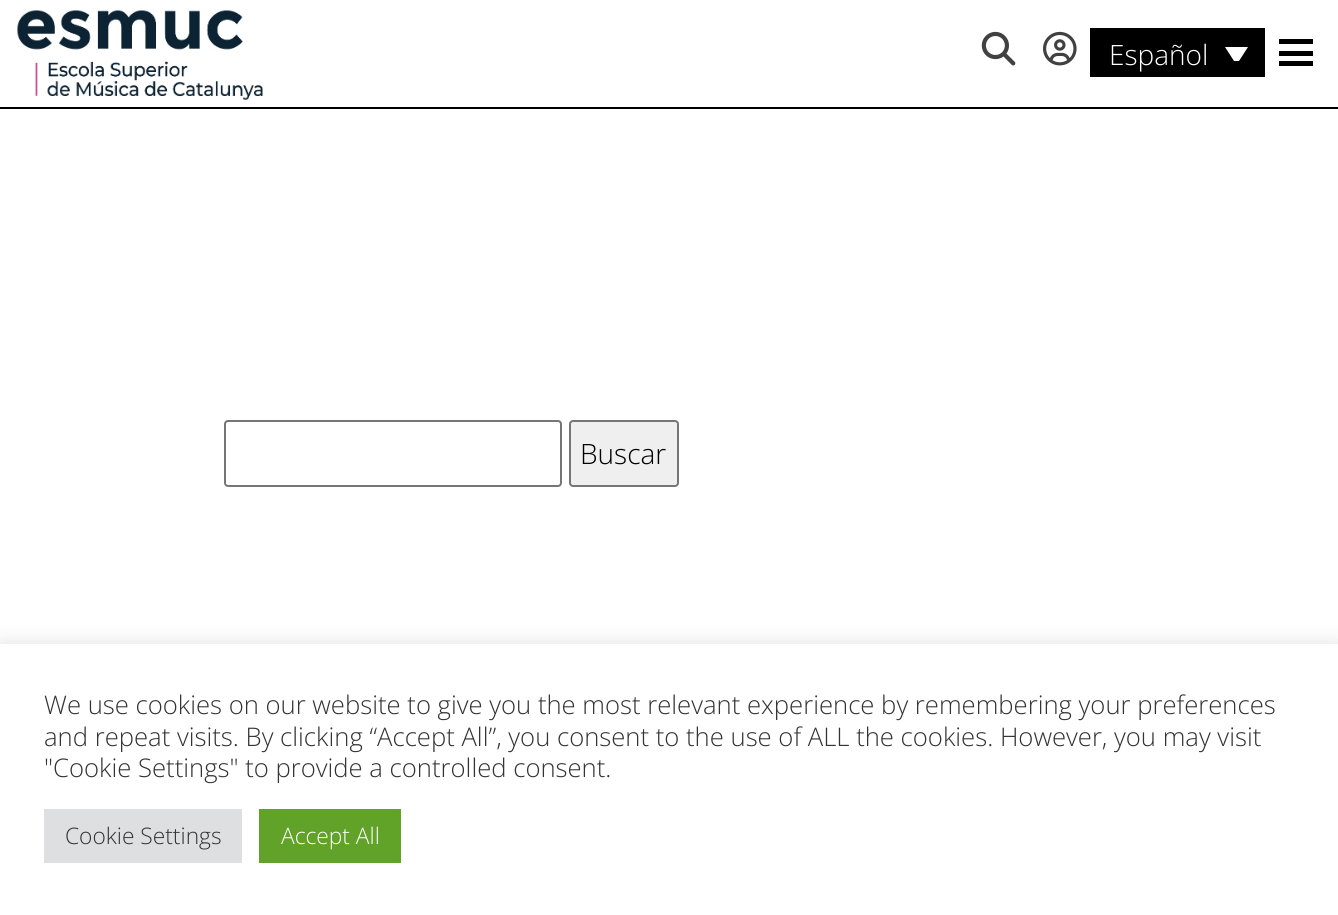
import math
import cairocffi as cairo

surface = cairo.ImageSurface(cairo.FORMAT_RGB24, 1338, 915)
cr = cairo.Context(surface)
options = cairo.FontOptions()
options.set_hint_metrics(cairo.HINT_METRICS_OFF)
options.set_hint_style(cairo.HINT_STYLE_NONE)
cr.set_font_options(options)
cr.set_miter_limit(4)


def use_color(code):
    cr.set_source_rgb(*(v / 255 for v in bytes.fromhex(code[-6:])))


def round_rect(x, y, w, h, r):
    cr.new_sub_path()
    for i, (u, v) in enumerate([(x + w - r, y + h - r), (x + r, y + h - r), (x + r, y + r), (x + w - r, y + r)]):
        cr.arc(u, v, r, i * math.pi / 2, (i + 1) * math.pi / 2)
    cr.close_path()


def shadow(x, y, w, h, r, blur, alpha):
    cr.push_group_with_content(cairo.CONTENT_ALPHA)
    cr.set_operator(cairo.OPERATOR_SOURCE)
    for i in range(15, -16, -2):
        e = blur * i / 6
        if min(w, h) + 2 * e > 0:
            cr.set_source_rgba(0, 0, 0, alpha * math.erfc((i - 1) / 8.5) / 2)
            round_rect(x - e, y - e, w + 2 * e, h + 2 * e, max(0, min(r + e + blur * .6, min(w, h) / 2 + e)))
            cr.fill()
    cr.mask(cr.pop_group())


def picture(path, x, y, w, h):
    cr.save()
    cr.set_source_surface(cairo.ImageSurface.create_from_png(path), x, y)
    cr.rectangle(x, y, w, h)
    cr.fill()
    cr.restore()


use_color("#ffffff")
cr.paint()
picture("img1.png", 17, 10, 246, 90)
use_color("#000000")
cr.rectangle(0, 107, 1338, 2)
cr.fill()
cr.rectangle(1279, 51, 34, 5)
cr.fill()
cr.rectangle(1279, 39, 34, 5)
cr.fill()
cr.rectangle(1279, 61, 34, 5)
cr.fill()
picture("img2.png", 981, 31, 35, 35)
picture("img3.png", 1043, 31, 34, 35)
cr.rectangle(1090, 28, 175, 49)
cr.fill()
cr.select_font_face("Open Sans Light")
cr.set_font_size(28)
use_color("#ffffff")
cr.move_to(1109, 65)
cr.show_text("Español")
cr.new_path()
cr.move_to(1225, 47)
cr.line_to(1248, 47)
cr.line_to(1239, 61)
cr.line_to(1234, 61)
cr.close_path()
cr.fill()
round_rect(225, 421, 336, 65, 3)
use_color("#767676")
cr.stroke()
use_color("#efefef")
round_rect(570, 421, 108, 65, 3)
cr.fill_preserve()
use_color("#767676")
cr.stroke()
use_color("#000000")
cr.move_to(580, 464)
cr.show_text("Buscar")
use_color("#acabab")
shadow(0, 642, 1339, 272, 0, 9, 0.3)
use_color("#ffffff")
cr.rectangle(0, 644, 1338, 271)
cr.fill()
cr.set_font_size(25.65)
use_color("#333333")
cr.move_to(44, 714)
cr.show_text("We use cookies on our website to give you the most relevant experience by remembering your preferences")
cr.move_to(44, 746)
cr.show_text("and repeat visits. By clicking “Accept All”, you consent to the use of ALL the cookies. However, you may visit")
cr.move_to(44, 777)
cr.show_text("\"Cookie Settings\" to provide a controlled consent.")
use_color("#dedfe0")
cr.rectangle(44, 809, 198, 54)
cr.fill()
cr.set_font_size(22.75)
use_color("#333333")
cr.move_to(65, 844)
cr.show_text("Cookie Settings")
use_color("#61a229")
cr.rectangle(259, 809, 142, 54)
cr.fill()
use_color("#ffffff")
cr.move_to(281, 844)
cr.show_text("Accept All")
surface.write_to_png("result.png")
